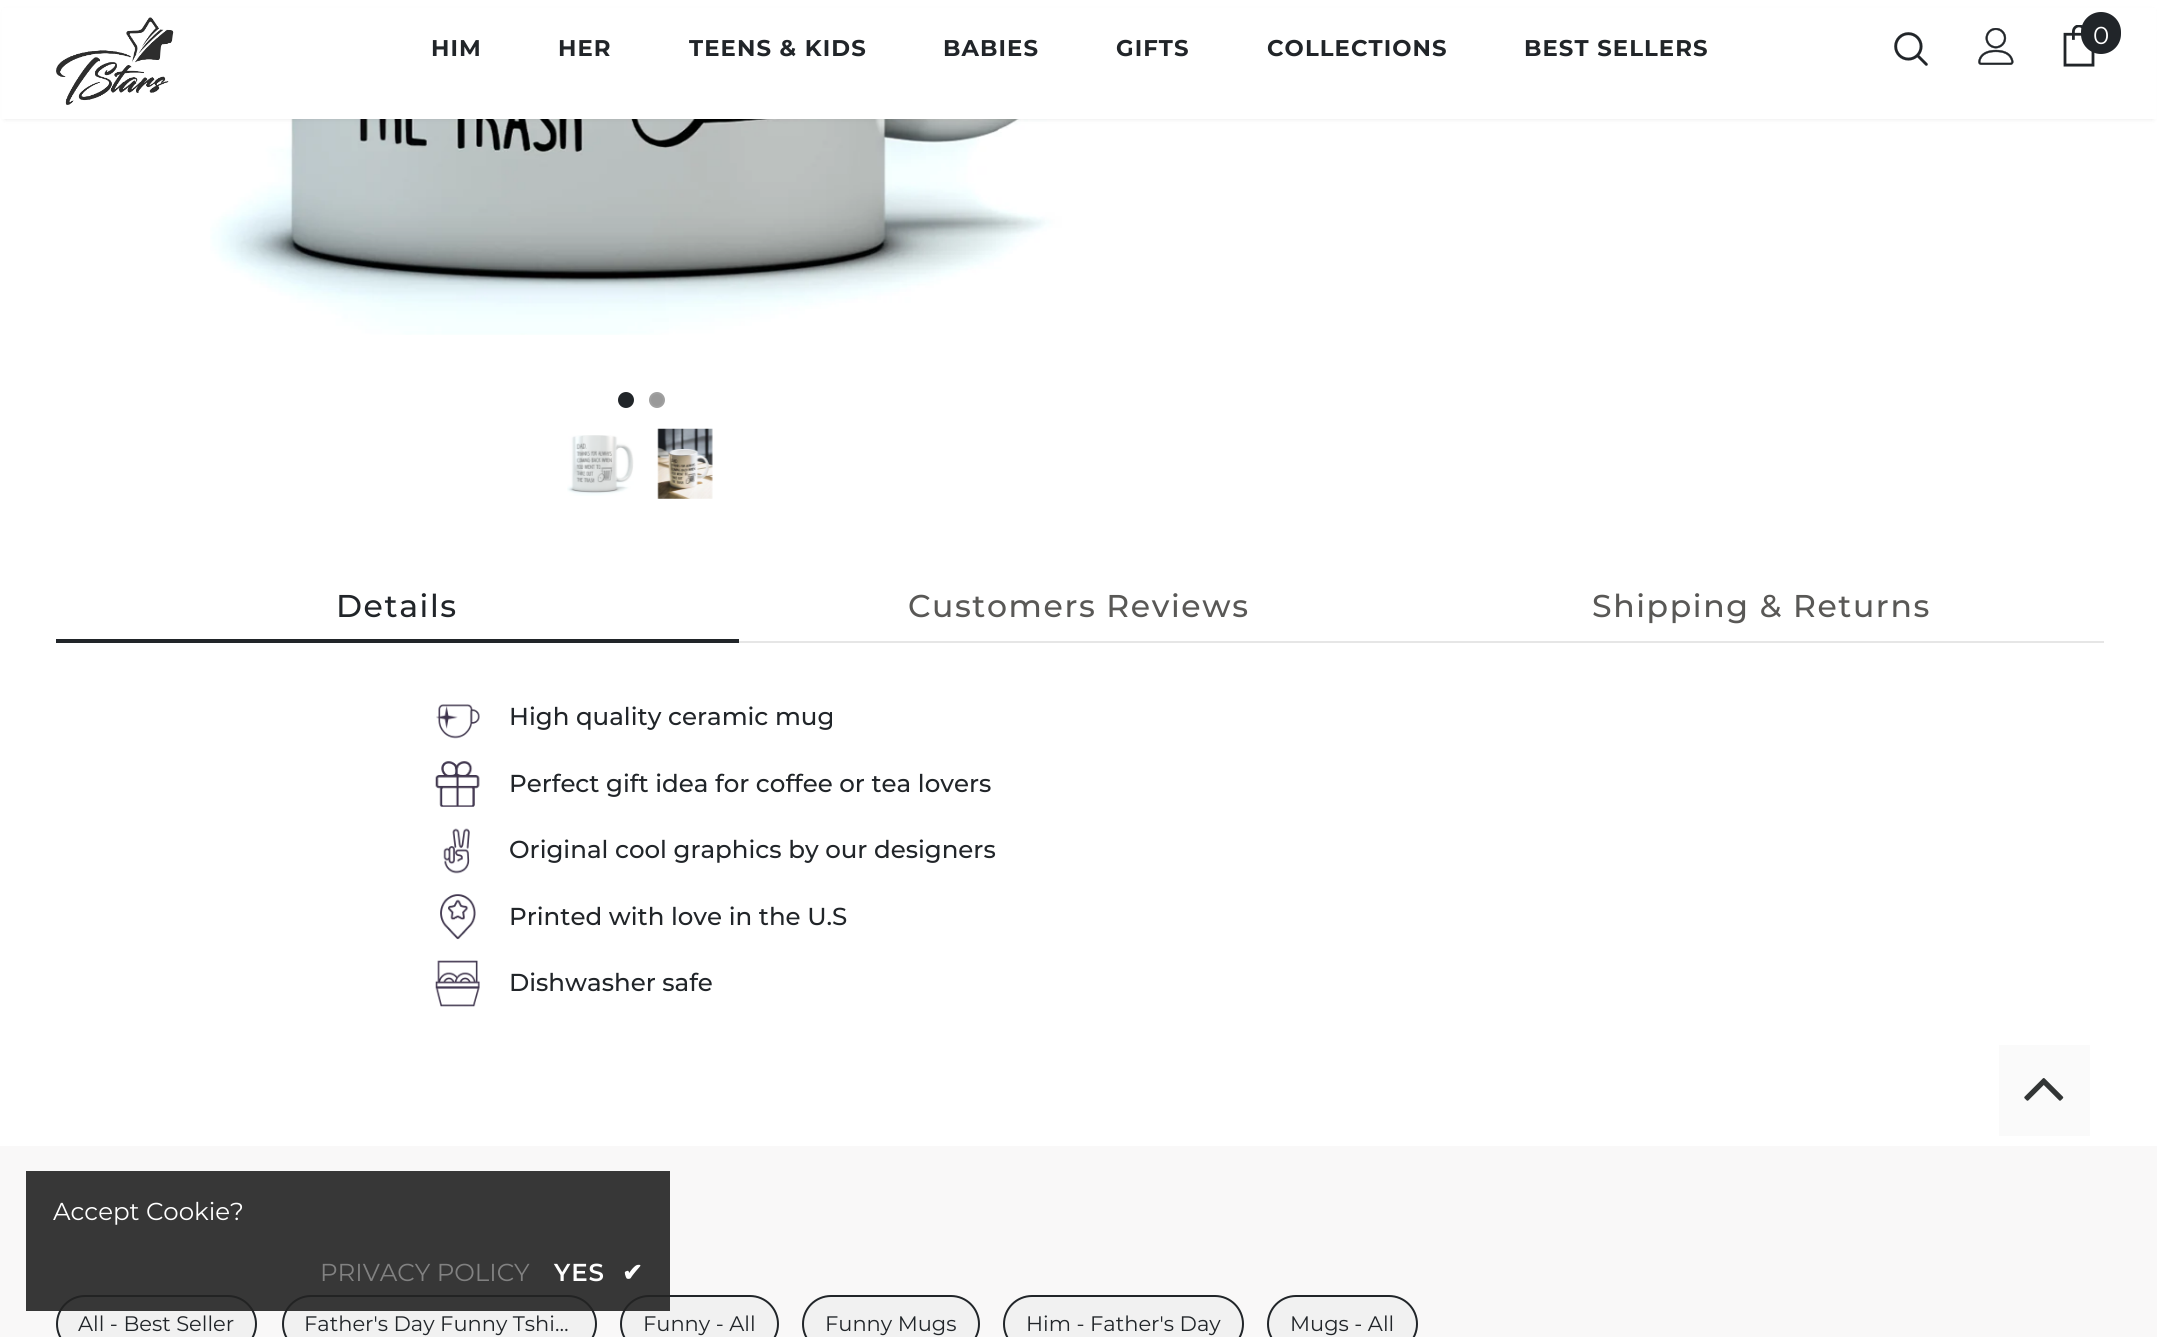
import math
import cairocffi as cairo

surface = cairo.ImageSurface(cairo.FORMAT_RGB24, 2157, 1337)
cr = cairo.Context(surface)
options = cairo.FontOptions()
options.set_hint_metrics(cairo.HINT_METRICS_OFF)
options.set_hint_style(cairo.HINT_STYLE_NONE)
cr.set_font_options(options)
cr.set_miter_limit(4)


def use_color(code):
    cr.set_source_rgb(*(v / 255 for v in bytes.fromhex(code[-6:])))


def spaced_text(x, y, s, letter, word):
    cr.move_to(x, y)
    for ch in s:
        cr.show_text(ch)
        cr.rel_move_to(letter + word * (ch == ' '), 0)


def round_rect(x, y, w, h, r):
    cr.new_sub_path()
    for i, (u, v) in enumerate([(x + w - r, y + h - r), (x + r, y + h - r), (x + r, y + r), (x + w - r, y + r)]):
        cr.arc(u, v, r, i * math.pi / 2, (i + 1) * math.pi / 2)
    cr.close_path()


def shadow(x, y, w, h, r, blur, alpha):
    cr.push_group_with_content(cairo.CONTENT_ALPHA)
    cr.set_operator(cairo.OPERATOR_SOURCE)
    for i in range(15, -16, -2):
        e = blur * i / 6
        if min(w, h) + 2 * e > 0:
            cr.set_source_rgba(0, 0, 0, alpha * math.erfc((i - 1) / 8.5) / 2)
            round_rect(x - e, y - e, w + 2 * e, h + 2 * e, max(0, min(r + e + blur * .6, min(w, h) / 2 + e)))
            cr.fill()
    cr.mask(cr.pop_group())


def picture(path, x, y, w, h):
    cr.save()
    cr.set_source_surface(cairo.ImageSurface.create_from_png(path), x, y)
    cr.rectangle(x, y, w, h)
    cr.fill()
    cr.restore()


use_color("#ffffff")
cr.paint()
picture("img5.png", 210, 119, 886, 216)
use_color("#000000")
shadow(5, 11, 2148, 108, 0, 2.5, 0.1)
use_color("#ffffff")
cr.rectangle(2, 8, 2154, 111)
cr.fill()
picture("img1.png", 56, 17, 118, 88)
picture("img2.png", 1894, 32, 34, 34)
picture("img3.png", 1978, 28, 36, 37)
picture("img4.png", 2063, 25, 32, 42)
use_color("#212529")
round_rect(2081, 12, 40, 42, 20)
cr.fill()
cr.select_font_face("Montserrat")
cr.set_font_size(24.5)
use_color("#ffffff")
cr.move_to(2093, 44)
cr.show_text("0")
cr.select_font_face("Montserrat", cairo.FONT_SLANT_NORMAL, cairo.FONT_WEIGHT_BOLD)
cr.set_font_size(22.75)
use_color("#212529")
spaced_text(431, 56, "HIM", 1.1, 0)
spaced_text(558, 56, "HER", 1.1, 0)
spaced_text(689, 56, "TEENS & KIDS", 1.1, 0)
spaced_text(943, 56, "BABIES", 1.1, 0)
spaced_text(1116, 56, "GIFTS", 1.1, 0)
spaced_text(1267, 56, "COLLECTIONS", 1.1, 0)
spaced_text(1524, 56, "BEST SELLERS", 1.1, 0)
cr.new_path()
cr.arc(626, 400, 7, 0, 2 * math.pi)
cr.fill_preserve()
cr.stroke()
use_color("#999999")
cr.arc(657, 400, 7, 0, 2 * math.pi)
cr.fill_preserve()
use_color("#a0a0a0")
cr.stroke()
picture("img6.png", 567, 435, 67, 61)
picture("img7.png", 657, 428, 56, 71)
use_color("#e6e6e6")
cr.rectangle(739, 641, 1365, 2)
cr.fill()
cr.select_font_face("Montserrat Medium")
cr.set_font_size(31.5)
use_color("#212529")
spaced_text(336, 617, "Details", 1.6, 0)
cr.rectangle(56, 639, 683, 4)
cr.fill()
use_color("#595856")
spaced_text(908, 617, "Customers Reviews", 1.6, 0)
spaced_text(1592, 617, "Shipping & Returns", 1.6, 0)
picture("img8.png", 436, 704, 44, 35)
cr.set_font_size(24.5)
use_color("#212529")
cr.move_to(509, 725)
cr.show_text("High quality ceramic mug")
picture("img9.png", 435, 761, 45, 46)
cr.move_to(509, 792)
cr.show_text("Perfect gift idea for coffee or tea lovers")
picture("img10.png", 443, 828, 27, 46)
cr.move_to(509, 858)
cr.show_text("Original cool graphics by our designers")
picture("img11.png", 440, 894, 36, 46)
cr.move_to(509, 925)
cr.show_text("Printed with love in the U.S")
picture("img12.png", 435, 960, 45, 47)
cr.move_to(509, 991)
cr.show_text("Dishwasher safe")
use_color("#f9f8f8")
cr.rectangle(0, 1146, 2157, 191)
cr.fill()
use_color("#f1f1f1")
round_rect(57, 1296, 199, 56, 28)
cr.fill_preserve()
use_color("#212529")
cr.stroke()
cr.select_font_face("Montserrat")
cr.set_font_size(21)
cr.move_to(78, 1331)
cr.show_text("All - Best Seller")
use_color("#f1f1f1")
round_rect(283, 1296, 313, 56, 28)
cr.fill_preserve()
use_color("#212529")
cr.stroke()
cr.move_to(304, 1331)
cr.show_text("Father's Day Funny Tshi…")
use_color("#f1f1f1")
round_rect(621, 1296, 157, 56, 28)
cr.fill_preserve()
use_color("#212529")
cr.stroke()
cr.move_to(643, 1331)
cr.show_text("Funny - All")
use_color("#f1f1f1")
round_rect(803, 1296, 176, 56, 28)
cr.fill_preserve()
use_color("#212529")
cr.stroke()
cr.move_to(825, 1331)
cr.show_text("Funny Mugs")
use_color("#f1f1f1")
round_rect(1004, 1296, 239, 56, 28)
cr.fill_preserve()
use_color("#212529")
cr.stroke()
cr.move_to(1026, 1331)
cr.show_text("Him - Father's Day")
use_color("#f1f1f1")
round_rect(1268, 1296, 149, 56, 28)
cr.fill_preserve()
use_color("#212529")
cr.stroke()
cr.move_to(1290, 1331)
cr.show_text("Mugs - All")
cr.set_source_rgba(0.137, 0.137, 0.137, 0.9)
cr.rectangle(26, 1171, 644, 140)
cr.fill()
cr.set_font_size(24.5)
use_color("#ffffff")
cr.move_to(53, 1220)
cr.show_text("Accept Cookie?")
use_color("#818181")
cr.move_to(320, 1281)
cr.show_text("PRIVACY POLICY")
cr.select_font_face("Montserrat SemiBold")
use_color("#ffffff")
spaced_text(554, 1281, "YES", 1, 0)
cr.select_font_face("DejaVu Sans", cairo.FONT_SLANT_NORMAL, cairo.FONT_WEIGHT_BOLD)
spaced_text(622, 1281, "✔", 1, 0)
use_color("#fafafa")
cr.rectangle(1999, 1045, 91, 91)
cr.fill()
picture("img13.png", 2024, 1078, 40, 23)
surface.write_to_png("result.png")
